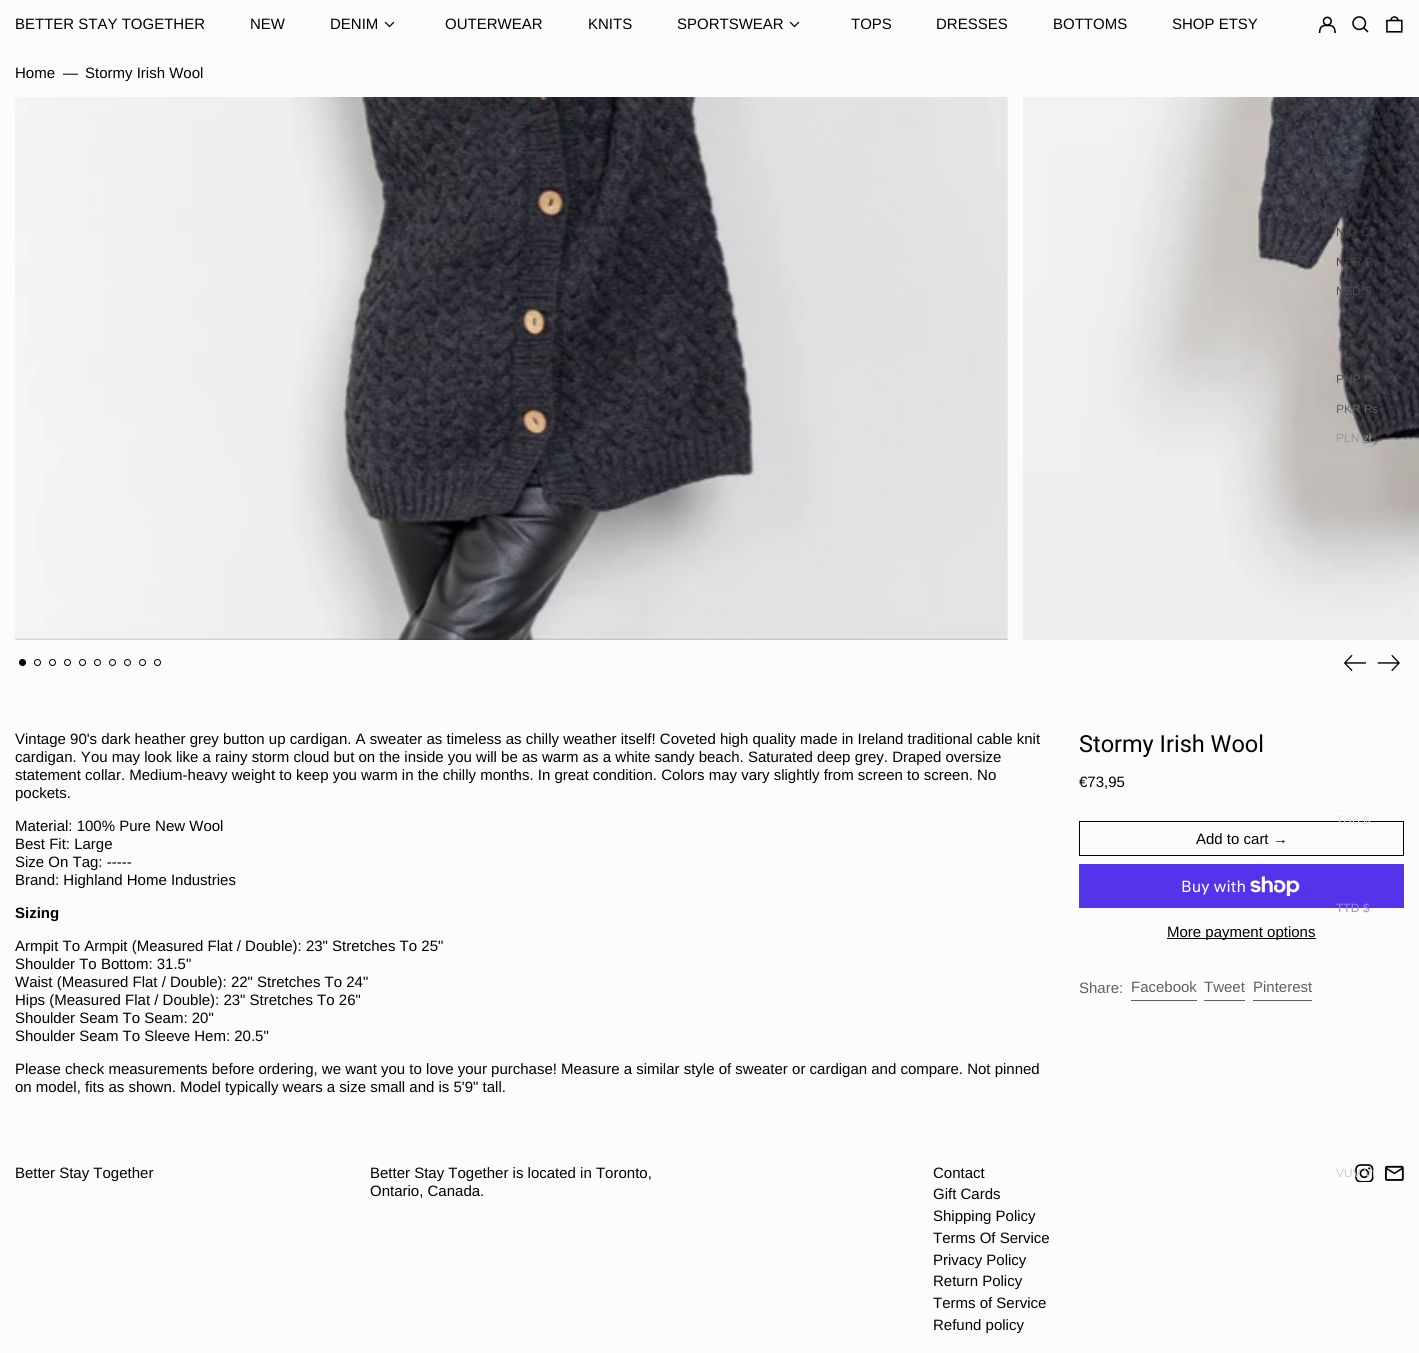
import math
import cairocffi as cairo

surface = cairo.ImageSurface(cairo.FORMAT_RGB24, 1419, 1353)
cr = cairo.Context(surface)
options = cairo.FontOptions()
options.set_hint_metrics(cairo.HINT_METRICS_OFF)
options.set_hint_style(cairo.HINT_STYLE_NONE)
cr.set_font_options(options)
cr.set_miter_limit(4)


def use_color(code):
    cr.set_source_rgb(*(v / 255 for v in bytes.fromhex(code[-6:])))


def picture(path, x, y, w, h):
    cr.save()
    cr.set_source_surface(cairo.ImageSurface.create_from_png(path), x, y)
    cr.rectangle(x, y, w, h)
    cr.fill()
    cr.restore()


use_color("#fcfcfc")
cr.paint()
cr.select_font_face("Liberation Sans")
cr.set_font_size(15)
use_color("#000000")
cr.move_to(15, 29)
cr.show_text("BETTER STAY TOGETHER")
cr.move_to(250, 29)
cr.show_text("NEW")
cr.move_to(330, 29)
cr.show_text("DENIM")
picture("img1.png", 384, 21, 11, 7)
cr.move_to(445, 29)
cr.show_text("OUTERWEAR")
cr.move_to(588, 29)
cr.show_text("KNITS")
cr.move_to(677, 29)
cr.show_text("SPORTSWEAR")
picture("img1.png", 789, 21, 11, 7)
cr.move_to(851, 29)
cr.show_text("TOPS")
cr.move_to(936, 29)
cr.show_text("DRESSES")
cr.move_to(1053, 29)
cr.show_text("BOTTOMS")
cr.move_to(1172, 29)
cr.show_text("SHOP ETSY")
picture("img2.png", 1318, 16, 18, 18)
picture("img3.png", 1352, 16, 17, 17)
picture("img4.png", 1386, 16, 17, 17)
cr.move_to(15, 78)
cr.show_text("Home")
cr.move_to(63, 78)
cr.show_text("—")
cr.move_to(85, 78)
cr.show_text("Stormy Irish Wool")
picture("img8.png", 1023, 97, 396, 543)
cr.set_font_size(12)
use_color("#30313b")
cr.move_to(1375, 119)
cr.show_text("V")
use_color("#424247")
cr.move_to(1336, 236)
cr.show_text("NIO C$")
cr.move_to(1336, 266)
cr.show_text("NPR Rs.")
use_color("#49494e")
cr.move_to(1336, 295)
cr.show_text("NZD $")
use_color("#545256")
cr.move_to(1336, 383)
cr.show_text("PHP ₱")
use_color("#606060")
cr.move_to(1336, 413)
cr.show_text("PKR ₨")
use_color("#999693")
cr.move_to(1336, 442)
cr.show_text("PLN zł")
cr.rectangle(1079.5, 821.5, 324, 34)
use_color("#000000")
cr.set_line_width(1)
cr.stroke()
use_color("#e8e8e8")
cr.move_to(1336, 824)
cr.show_text("THB")
cr.select_font_face("DejaVu Sans")
cr.move_to(1363, 824)
cr.show_text("฿")
use_color("#5433eb")
cr.rectangle(1079, 864, 325, 44)
cr.fill()
cr.select_font_face("Liberation Sans")
use_color("#9783f2")
cr.move_to(1336, 912)
cr.show_text("TTD $")
picture("img5.png", 1355, 1164, 19, 18)
use_color("#cdcdcd")
cr.move_to(1336, 1177)
cr.show_text("VUV Vt")
cr.set_font_size(15)
use_color("#000000")
cr.move_to(15, 1178)
cr.show_text("Better Stay Together")
cr.move_to(370, 1178)
cr.show_text("Better Stay Together is located in Toronto,")
cr.move_to(370, 1196)
cr.show_text("Ontario, Canada.")
cr.move_to(933, 1178)
cr.show_text("Contact")
cr.move_to(933, 1199)
cr.show_text("Gift Cards")
cr.move_to(933, 1221)
cr.show_text("Shipping Policy")
cr.move_to(933, 1243)
cr.show_text("Terms Of Service")
cr.move_to(933, 1265)
cr.show_text("Privacy Policy")
cr.move_to(933, 1286)
cr.show_text("Return Policy")
cr.move_to(933, 1308)
cr.show_text("Terms of Service")
cr.move_to(933, 1330)
cr.show_text("Refund policy")
picture("img6.png", 1385, 1165, 19, 16)
picture("img7.png", 15, 97, 993, 543)
cr.arc(22.5, 662.5, 3, 0, 2 * math.pi)
cr.fill_preserve()
cr.stroke()
cr.arc(37.5, 662.5, 3, 0, 2 * math.pi)
cr.stroke()
cr.arc(52.5, 662.5, 3, 0, 2 * math.pi)
cr.stroke()
cr.arc(67.5, 662.5, 3, 0, 2 * math.pi)
cr.stroke()
cr.arc(82.5, 662.5, 3, 0, 2 * math.pi)
cr.stroke()
cr.arc(97.5, 662.5, 3, 0, 2 * math.pi)
cr.stroke()
cr.arc(112.5, 662.5, 3, 0, 2 * math.pi)
cr.stroke()
cr.arc(127.5, 662.5, 3, 0, 2 * math.pi)
cr.stroke()
cr.arc(142.5, 662.5, 3, 0, 2 * math.pi)
cr.stroke()
cr.arc(157.5, 662.5, 3, 0, 2 * math.pi)
cr.stroke()
picture("img9.png", 1343, 654, 23, 18)
picture("img10.png", 1377, 654, 23, 18)
cr.move_to(15, 744)
cr.show_text("Vintage 90's dark heather grey button up cardigan. A sweater as timeless as chilly weather itself! Coveted high quality made in Ireland traditional cable knit")
cr.move_to(15, 762)
cr.show_text("cardigan. You may look like a rainy storm cloud but on the inside you will be as warm as a white sandy beach. Saturated deep grey. Draped oversize")
cr.move_to(15, 780)
cr.show_text("statement collar. Medium-heavy weight to keep you warm in the chilly months. In great condition. Colors may vary slightly from screen to screen. No")
cr.move_to(15, 798)
cr.show_text("pockets.")
cr.move_to(15, 831)
cr.show_text("Material: 100% Pure New Wool")
cr.move_to(15, 849)
cr.show_text("Best Fit: Large")
cr.move_to(15, 867)
cr.show_text("Size On Tag: -----")
cr.move_to(15, 885)
cr.show_text("Brand: Highland Home Industries")
cr.select_font_face("Liberation Sans", cairo.FONT_SLANT_NORMAL, cairo.FONT_WEIGHT_BOLD)
cr.move_to(15, 918)
cr.show_text("Sizing")
cr.select_font_face("Liberation Sans")
cr.move_to(15, 951)
cr.show_text("Armpit To Armpit (Measured Flat / Double): 23\" Stretches To 25\"")
cr.move_to(15, 969)
cr.show_text("Shoulder To Bottom: 31.5\"")
cr.move_to(15, 987)
cr.show_text("Waist (Measured Flat / Double): 22\" Stretches To 24\"")
cr.move_to(15, 1005)
cr.show_text("Hips (Measured Flat / Double): 23\" Stretches To 26\"")
cr.move_to(15, 1023)
cr.show_text("Shoulder Seam To Seam: 20\"")
cr.move_to(15, 1041)
cr.show_text("Shoulder Seam To Sleeve Hem: 20.5\"")
cr.move_to(15, 1074)
cr.show_text("Please check measurements before ordering, we want you to love your purchase! Measure a similar style of sweater or cardigan and compare. Not pinned")
cr.move_to(15, 1092)
cr.show_text("on model, fits as shown. Model typically wears a size small and is 5'9\" tall.")
cr.select_font_face("Roboto")
cr.set_font_size(23.5)
cr.move_to(1079, 752)
cr.show_text("Stormy Irish Wool")
cr.select_font_face("Liberation Sans")
cr.set_font_size(15)
cr.move_to(1079, 787)
cr.show_text("€73,95")
cr.move_to(1196, 844)
cr.show_text("Add to cart →")
cr.select_font_face("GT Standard")
cr.set_font_size(16)
use_color("#ffffff")
cr.move_to(1181, 892)
cr.show_text("Buy with")
picture("img11.png", 1250, 876, 50, 20)
use_color("#000000")
cr.rectangle(1167, 938, 149, 1)
cr.fill()
cr.select_font_face("Liberation Sans")
cr.set_font_size(15)
cr.move_to(1167, 937)
cr.show_text("More payment options")
use_color("#606060")
cr.move_to(1079, 993)
cr.show_text("Share:")
cr.rectangle(1131, 1000, 66, 1)
cr.fill()
cr.move_to(1131, 992)
cr.show_text("Facebook")
cr.rectangle(1204, 1000, 41, 1)
cr.fill()
cr.move_to(1204, 992)
cr.show_text("Tweet")
cr.rectangle(1253, 1000, 59, 1)
cr.fill()
cr.move_to(1253, 992)
cr.show_text("Pinterest")
surface.write_to_png("result.png")
